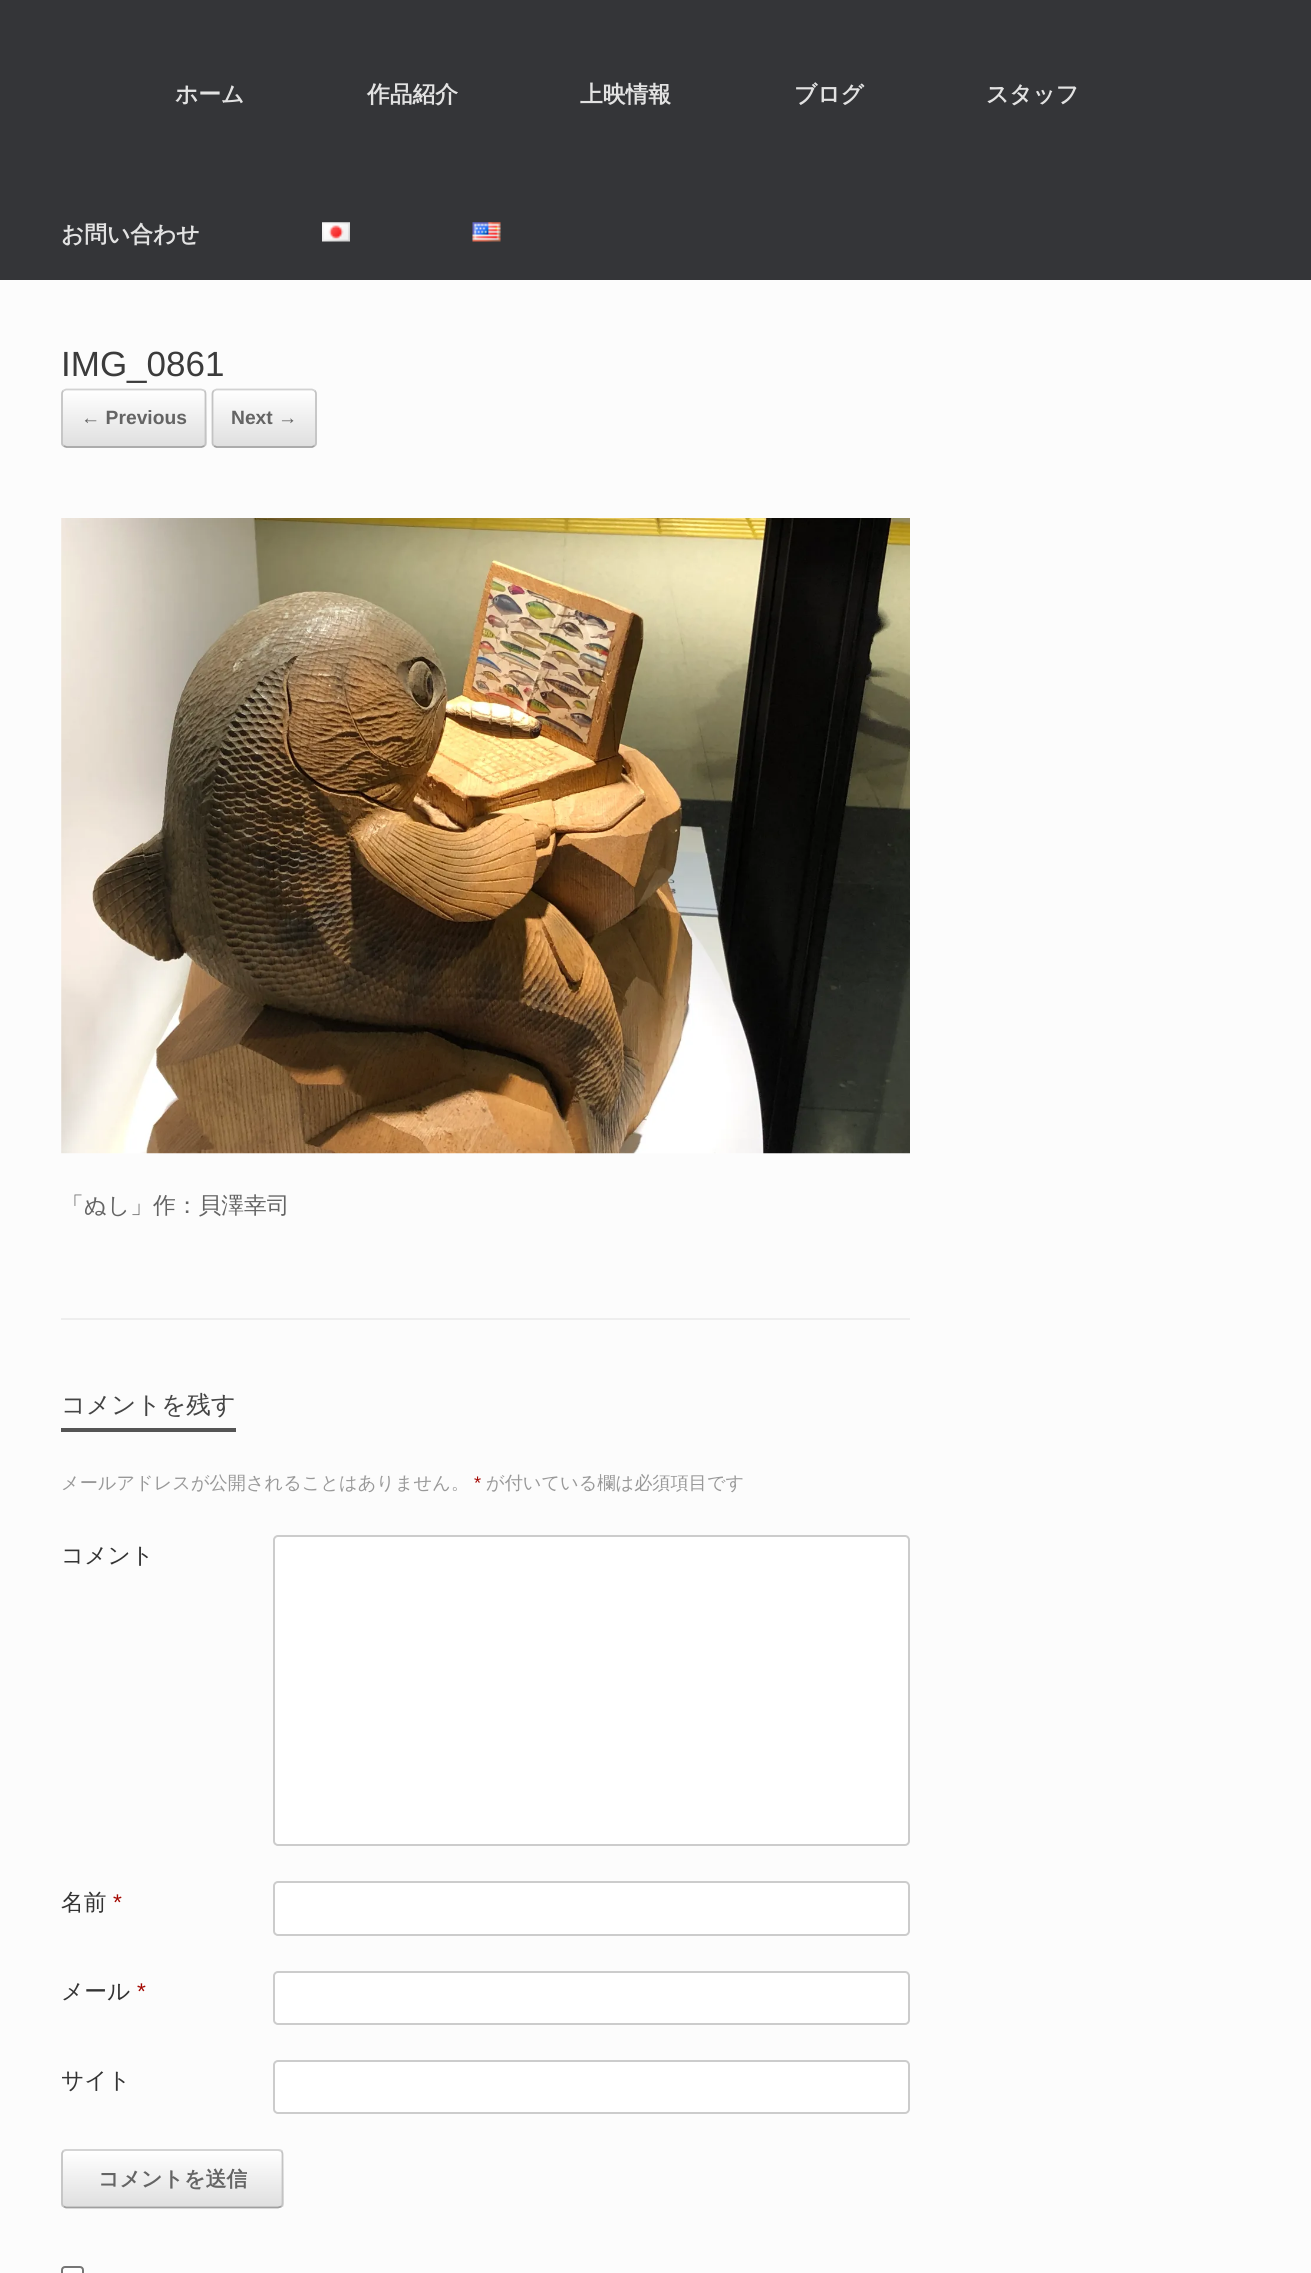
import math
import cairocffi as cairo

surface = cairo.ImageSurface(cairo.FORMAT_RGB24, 1311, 2273)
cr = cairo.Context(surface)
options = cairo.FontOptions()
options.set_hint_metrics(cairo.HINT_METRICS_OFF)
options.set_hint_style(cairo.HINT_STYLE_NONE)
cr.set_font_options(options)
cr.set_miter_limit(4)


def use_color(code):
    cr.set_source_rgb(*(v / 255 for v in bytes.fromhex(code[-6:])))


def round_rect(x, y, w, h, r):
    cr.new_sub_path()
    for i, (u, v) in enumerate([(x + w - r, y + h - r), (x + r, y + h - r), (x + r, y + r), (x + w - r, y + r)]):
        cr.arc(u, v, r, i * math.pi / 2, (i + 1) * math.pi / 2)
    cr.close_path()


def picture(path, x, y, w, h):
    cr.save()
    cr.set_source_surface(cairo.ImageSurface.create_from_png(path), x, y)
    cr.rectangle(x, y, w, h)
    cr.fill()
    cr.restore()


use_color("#fcfcfc")
cr.paint()
use_color("#343538")
cr.rectangle(0, 0, 1311, 280)
cr.fill()
cr.select_font_face("WenQuanYi Zen Hei", cairo.FONT_SLANT_NORMAL, cairo.FONT_WEIGHT_BOLD)
cr.set_font_size(22.75)
use_color("#e2e2e2")
cr.move_to(175, 102)
cr.show_text("ホーム")
cr.move_to(367, 102)
cr.show_text("作品紹介")
cr.move_to(580, 102)
cr.show_text("上映情報")
cr.move_to(794, 102)
cr.show_text("ブログ")
cr.move_to(986, 102)
cr.show_text("スタッフ")
cr.move_to(61, 242)
cr.show_text("お問い合わせ")
picture("img1.png", 322, 222, 28, 20)
picture("img2.png", 472, 222, 29, 20)
use_color("#eeeeee")
cr.rectangle(61, 1318, 849, 2)
cr.fill()
cr.select_font_face("Liberation Sans")
cr.set_font_size(35)
use_color("#3b3b3b")
cr.move_to(61, 376)
cr.show_text("IMG_0861")
cr.save()
round_rect(61, 389, 146, 59, 5)
cr.clip()
gradient = cairo.LinearGradient(63, 446, 63, 390)
gradient.add_color_stop_rgba(0, 0.875, 0.875, 0.875, 1)
gradient.add_color_stop_rgba(1, 1, 1, 1, 1)
cr.set_source(gradient)
cr.rectangle(61, 390, 146, 56)
cr.fill()
gradient = cairo.LinearGradient(63, 502, 63, 446)
gradient.add_color_stop_rgba(0, 0.875, 0.875, 0.875, 1)
gradient.add_color_stop_rgba(1, 1, 1, 1, 1)
cr.set_source(gradient)
cr.rectangle(61, 446, 146, 2)
cr.fill()
cr.restore()
cr.new_path()
cr.move_to(63.5, 390.5)
cr.line_to(66, 389.5)
cr.line_to(179, 389.5)
cr.line_to(201, 389.5)
cr.line_to(204.5, 390.5)
use_color("#d2d2d2")
cr.set_line_width(1.8)
cr.stroke()
cr.new_path()
cr.move_to(204.5, 390.5)
cr.curve_to(205, 391.5, 205.5, 392.5, 205.5, 394)
cr.line_to(205.5, 443)
cr.curve_to(205.5, 444, 205, 445, 204.5, 446)
use_color("#c3c3c3")
cr.stroke()
cr.new_path()
cr.move_to(204.5, 446)
cr.line_to(201.5, 447)
cr.line_to(89, 447)
cr.line_to(66.5, 447)
cr.line_to(63.5, 446)
use_color("#9f9f9f")
cr.stroke()
cr.new_path()
cr.move_to(63.5, 446)
cr.curve_to(62.5, 445, 62, 444, 62, 443)
cr.line_to(62, 394)
cr.curve_to(62, 392.5, 62.5, 391.5, 63.5, 390.5)
use_color("#c3c3c3")
cr.stroke()
cr.select_font_face("Liberation Sans", cairo.FONT_SLANT_NORMAL, cairo.FONT_WEIGHT_BOLD)
cr.set_font_size(19.25)
use_color("#646464")
cr.move_to(81, 424)
cr.show_text("← Previous")
cr.save()
round_rect(212, 389, 105, 59, 5)
cr.clip()
gradient = cairo.LinearGradient(214, 446, 214, 390)
gradient.add_color_stop_rgba(0, 0.875, 0.875, 0.875, 1)
gradient.add_color_stop_rgba(1, 1, 1, 1, 1)
cr.set_source(gradient)
cr.rectangle(212, 390, 105, 56)
cr.fill()
gradient = cairo.LinearGradient(214, 502, 214, 446)
gradient.add_color_stop_rgba(0, 0.875, 0.875, 0.875, 1)
gradient.add_color_stop_rgba(1, 1, 1, 1, 1)
cr.set_source(gradient)
cr.rectangle(212, 446, 105, 2)
cr.fill()
cr.restore()
cr.new_path()
cr.move_to(214, 390.5)
cr.line_to(216.5, 389.5)
cr.line_to(312, 389.5)
cr.line_to(314.5, 390.5)
use_color("#d2d2d2")
cr.stroke()
cr.new_path()
cr.move_to(314.5, 390.5)
cr.curve_to(315.5, 391.5, 316, 392.5, 316, 394)
cr.line_to(316, 443)
cr.curve_to(316, 444, 315.5, 445, 314.5, 446)
use_color("#c3c3c3")
cr.stroke()
cr.new_path()
cr.move_to(314.5, 446)
cr.line_to(312, 447)
cr.line_to(216.5, 447)
cr.line_to(214, 446)
use_color("#9f9f9f")
cr.stroke()
cr.new_path()
cr.move_to(214, 446)
cr.curve_to(213, 445, 212.5, 444, 212.5, 443)
cr.line_to(212.5, 394)
cr.curve_to(212.5, 392.5, 213, 391.5, 214, 390.5)
use_color("#c3c3c3")
cr.stroke()
use_color("#646464")
cr.move_to(231, 424)
cr.show_text("Next →")
picture("img3.png", 61, 518, 849, 636)
cr.select_font_face("WenQuanYi Zen Hei Medium")
cr.set_font_size(22.75)
cr.move_to(61, 1213)
cr.show_text("「ぬし」作：貝澤幸司")
use_color("#555555")
cr.rectangle(61, 1428, 175, 4)
cr.fill()
cr.set_font_size(24.5)
use_color("#444444")
cr.move_to(61, 1413)
cr.show_text("コメントを残す")
cr.set_font_size(18.2)
use_color("#999999")
cr.move_to(61, 1489)
cr.show_text("メールアドレスが公開されることはありません。")
cr.select_font_face("Liberation Sans")
use_color("#a40802")
cr.move_to(474, 1489)
cr.show_text("*")
cr.select_font_face("WenQuanYi Zen Hei Medium")
use_color("#999999")
cr.move_to(486, 1489)
cr.show_text("が付いている欄は必須項目です")
cr.set_font_size(22.75)
use_color("#333333")
cr.move_to(61, 1563)
cr.show_text("コメント")
use_color("#ffffff")
round_rect(274, 1536, 635, 309, 4)
cr.fill_preserve()
use_color("#cccccc")
cr.set_line_width(2)
cr.stroke()
use_color("#333333")
cr.move_to(61, 1910)
cr.show_text("名前")
cr.select_font_face("Liberation Sans")
use_color("#a40802")
cr.move_to(113, 1910)
cr.show_text("*")
use_color("#ffffff")
round_rect(274, 1882, 635, 53, 4)
cr.fill_preserve()
use_color("#cccccc")
cr.stroke()
cr.select_font_face("WenQuanYi Zen Hei Medium")
use_color("#333333")
cr.move_to(61, 1999)
cr.show_text("メール")
cr.select_font_face("Liberation Sans")
use_color("#a40802")
cr.move_to(137, 1999)
cr.show_text("*")
use_color("#ffffff")
round_rect(274, 1972, 635, 52, 4)
cr.fill_preserve()
use_color("#cccccc")
cr.stroke()
cr.select_font_face("WenQuanYi Zen Hei Medium")
use_color("#333333")
cr.move_to(61, 2088)
cr.show_text("サイト")
use_color("#ffffff")
round_rect(274, 2061, 635, 52, 4)
cr.fill_preserve()
use_color("#cccccc")
cr.stroke()
cr.save()
round_rect(61, 2149, 223, 60, 5)
cr.clip()
gradient = cairo.LinearGradient(63, 2151, 63, 2095)
gradient.add_color_stop_rgba(0, 0.875, 0.875, 0.875, 1)
gradient.add_color_stop_rgba(1, 1, 1, 1, 1)
cr.set_source(gradient)
cr.rectangle(61, 2149, 223, 2)
cr.fill()
gradient = cairo.LinearGradient(63, 2207, 63, 2151)
gradient.add_color_stop_rgba(0, 0.875, 0.875, 0.875, 1)
gradient.add_color_stop_rgba(1, 1, 1, 1, 1)
cr.set_source(gradient)
cr.rectangle(61, 2151, 223, 56)
cr.fill()
gradient = cairo.LinearGradient(63, 2263, 63, 2207)
gradient.add_color_stop_rgba(0, 0.875, 0.875, 0.875, 1)
gradient.add_color_stop_rgba(1, 1, 1, 1, 1)
cr.set_source(gradient)
cr.rectangle(61, 2207, 223, 2)
cr.fill()
cr.restore()
cr.new_path()
cr.move_to(63.5, 2151)
cr.line_to(66, 2150)
cr.line_to(243, 2150)
cr.line_to(278, 2150)
cr.line_to(281.5, 2151)
use_color("#d2d2d2")
cr.set_line_width(1.8)
cr.stroke()
cr.new_path()
cr.move_to(281.5, 2151)
cr.curve_to(282, 2152, 282.5, 2153, 282.5, 2154)
cr.line_to(282.5, 2203)
cr.curve_to(282.5, 2204.5, 282, 2205.5, 281.5, 2206.5)
use_color("#c3c3c3")
cr.stroke()
cr.new_path()
cr.move_to(281.5, 2206.5)
cr.line_to(278, 2207.5)
cr.line_to(66, 2207.5)
cr.line_to(63.5, 2206.5)
use_color("#9f9f9f")
cr.stroke()
cr.new_path()
cr.move_to(63.5, 2206.5)
cr.curve_to(62.5, 2205.5, 62, 2204.5, 62, 2203)
cr.line_to(62, 2154)
cr.curve_to(62, 2153, 62.5, 2152, 63.5, 2151)
use_color("#c3c3c3")
cr.stroke()
cr.select_font_face("WenQuanYi Zen Hei", cairo.FONT_SLANT_NORMAL, cairo.FONT_WEIGHT_BOLD)
cr.set_font_size(21)
use_color("#646464")
cr.move_to(98, 2186)
cr.show_text("コメントを送信")
use_color("#ffffff")
round_rect(62, 2267, 21, 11, 3)
cr.fill_preserve()
use_color("#767676")
cr.set_line_width(2)
cr.stroke()
surface.write_to_png("result.png")
